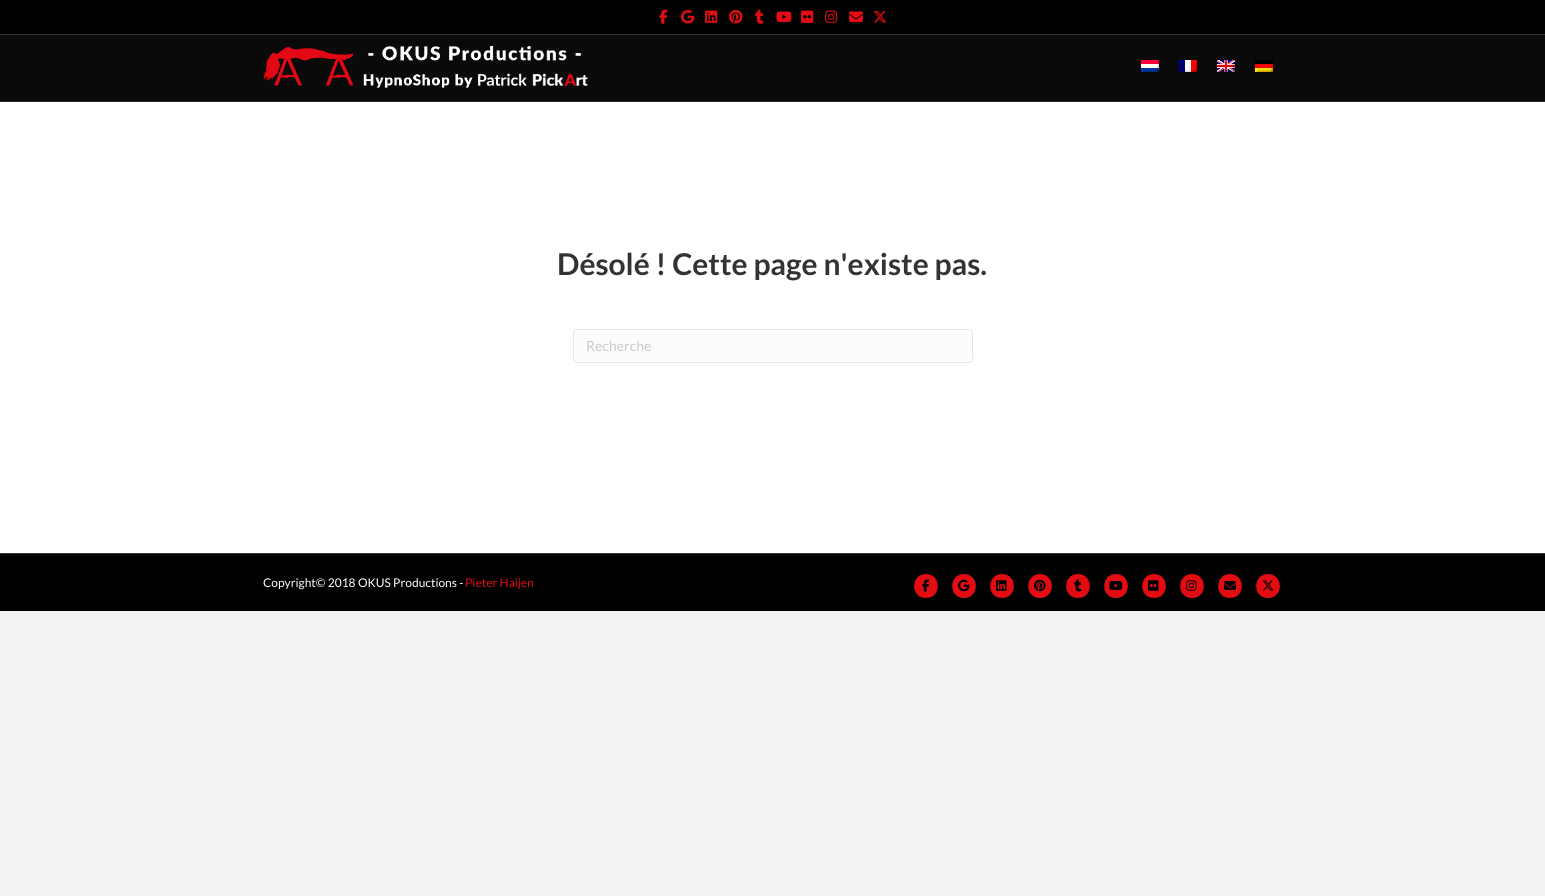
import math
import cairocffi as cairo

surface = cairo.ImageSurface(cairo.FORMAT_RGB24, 1545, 896)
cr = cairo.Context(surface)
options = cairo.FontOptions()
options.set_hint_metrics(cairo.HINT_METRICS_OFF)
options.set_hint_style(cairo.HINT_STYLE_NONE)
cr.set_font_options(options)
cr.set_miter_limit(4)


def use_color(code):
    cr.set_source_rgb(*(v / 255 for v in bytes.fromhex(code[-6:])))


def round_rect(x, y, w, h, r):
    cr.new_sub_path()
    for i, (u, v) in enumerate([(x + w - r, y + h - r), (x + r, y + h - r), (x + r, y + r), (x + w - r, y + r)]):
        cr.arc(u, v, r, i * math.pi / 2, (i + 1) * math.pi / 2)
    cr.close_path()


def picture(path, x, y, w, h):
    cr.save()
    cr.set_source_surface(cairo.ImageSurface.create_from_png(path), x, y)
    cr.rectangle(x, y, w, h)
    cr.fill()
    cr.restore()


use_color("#f2f2f2")
cr.paint()
use_color("#000000")
cr.rectangle(0, 0, 1545, 34)
cr.fill()
use_color("#303030")
cr.rectangle(0, 34, 1545, 1)
cr.fill()
picture("img1.png", 659, 9, 9, 15)
picture("img2.png", 681, 10, 14, 14)
picture("img3.png", 705, 10, 13, 13)
picture("img4.png", 729, 10, 14, 14)
picture("img5.png", 755, 9, 9, 15)
picture("img6.png", 776, 11, 16, 11)
picture("img7.png", 801, 10, 13, 13)
picture("img8.png", 825, 10, 13, 13)
picture("img9.png", 849, 11, 14, 11)
picture("img10.png", 873, 11, 14, 12)
use_color("#0a0a0a")
cr.rectangle(0, 35, 1545, 66)
cr.fill()
use_color("#2a2a2a")
cr.rectangle(0, 101, 1545, 1)
cr.fill()
picture("img11.png", 263, 46, 325, 42)
picture("img12.png", 1141, 60, 18, 12)
picture("img13.png", 1179, 60, 18, 12)
picture("img14.png", 1217, 60, 18, 12)
picture("img15.png", 1255, 60, 18, 12)
use_color("#ffffff")
cr.rectangle(0, 102, 1545, 451)
cr.fill()
cr.select_font_face("Lato", cairo.FONT_SLANT_NORMAL, cairo.FONT_WEIGHT_BOLD)
cr.set_font_size(30)
use_color("#333333")
cr.move_to(557, 275)
cr.show_text("Désolé ! Cette page n'existe pas.")
use_color("#fcfcfc")
round_rect(573.5, 329.5, 399, 33, 3.5)
cr.fill_preserve()
use_color("#e6e6e6")
cr.set_line_width(1)
cr.stroke()
cr.select_font_face("Lato")
cr.set_font_size(14)
use_color("#cacaca")
cr.move_to(586, 351)
cr.show_text("Recherche")
use_color("#000000")
cr.rectangle(0, 554, 1545, 57)
cr.fill()
use_color("#303030")
cr.rectangle(0, 553, 1545, 1)
cr.fill()
cr.set_font_size(12)
use_color("#ffffff")
cr.move_to(263, 587)
cr.show_text("Copyright© 2018 OKUS Productions -")
use_color("#e30c13")
cr.move_to(465, 587)
cr.show_text("Pieter Haijen")
cr.new_path()
cr.move_to(926, 598)
cr.curve_to(942, 598, 941.5, 574, 926, 574)
cr.curve_to(910.5, 574, 910, 598, 926, 598)
cr.close_path()
cr.fill()
picture("img16.png", 922, 579, 8, 13)
cr.new_path()
cr.move_to(964, 598)
cr.curve_to(980, 598, 979.5, 574, 964, 574)
cr.curve_to(948.5, 574, 948, 598, 964, 598)
cr.close_path()
cr.fill()
picture("img17.png", 958, 579, 12, 13)
cr.new_path()
cr.move_to(1002, 598)
cr.curve_to(1018, 598, 1017.5, 574, 1002, 574)
cr.curve_to(986.5, 574, 986, 598, 1002, 598)
cr.close_path()
cr.fill()
picture("img18.png", 996, 580, 11, 11)
cr.new_path()
cr.move_to(1040, 598)
cr.curve_to(1056, 598, 1055.5, 574, 1040, 574)
cr.curve_to(1024.5, 574, 1024, 598, 1040, 598)
cr.close_path()
cr.fill()
picture("img19.png", 1034, 579, 12, 13)
cr.new_path()
cr.move_to(1078, 598)
cr.curve_to(1094, 598, 1093.5, 574, 1078, 574)
cr.curve_to(1062.5, 574, 1062, 598, 1078, 598)
cr.close_path()
cr.fill()
picture("img20.png", 1074, 579, 8, 13)
cr.new_path()
cr.move_to(1116, 598)
cr.curve_to(1132, 598, 1131.5, 574, 1116, 574)
cr.curve_to(1100.5, 574, 1100, 598, 1116, 598)
cr.close_path()
cr.fill()
picture("img21.png", 1109, 581, 14, 9)
cr.new_path()
cr.move_to(1154, 598)
cr.curve_to(1170, 598, 1169.5, 574, 1154, 574)
cr.curve_to(1138.5, 574, 1138, 598, 1154, 598)
cr.close_path()
cr.fill()
picture("img22.png", 1148, 580, 11, 11)
cr.new_path()
cr.move_to(1192, 598)
cr.curve_to(1208, 598, 1207.5, 574, 1192, 574)
cr.curve_to(1176.5, 574, 1176, 598, 1192, 598)
cr.close_path()
cr.fill()
picture("img23.png", 1186, 580, 11, 11)
cr.new_path()
cr.move_to(1230, 598)
cr.curve_to(1246, 598, 1245.5, 574, 1230, 574)
cr.curve_to(1214.5, 574, 1214, 598, 1230, 598)
cr.close_path()
cr.fill()
picture("img24.png", 1224, 581, 12, 9)
cr.new_path()
cr.move_to(1268, 598)
cr.curve_to(1284, 598, 1283.5, 574, 1268, 574)
cr.curve_to(1252.5, 574, 1252, 598, 1268, 598)
cr.close_path()
cr.fill()
picture("img25.png", 1262, 580, 12, 11)
surface.write_to_png("result.png")
